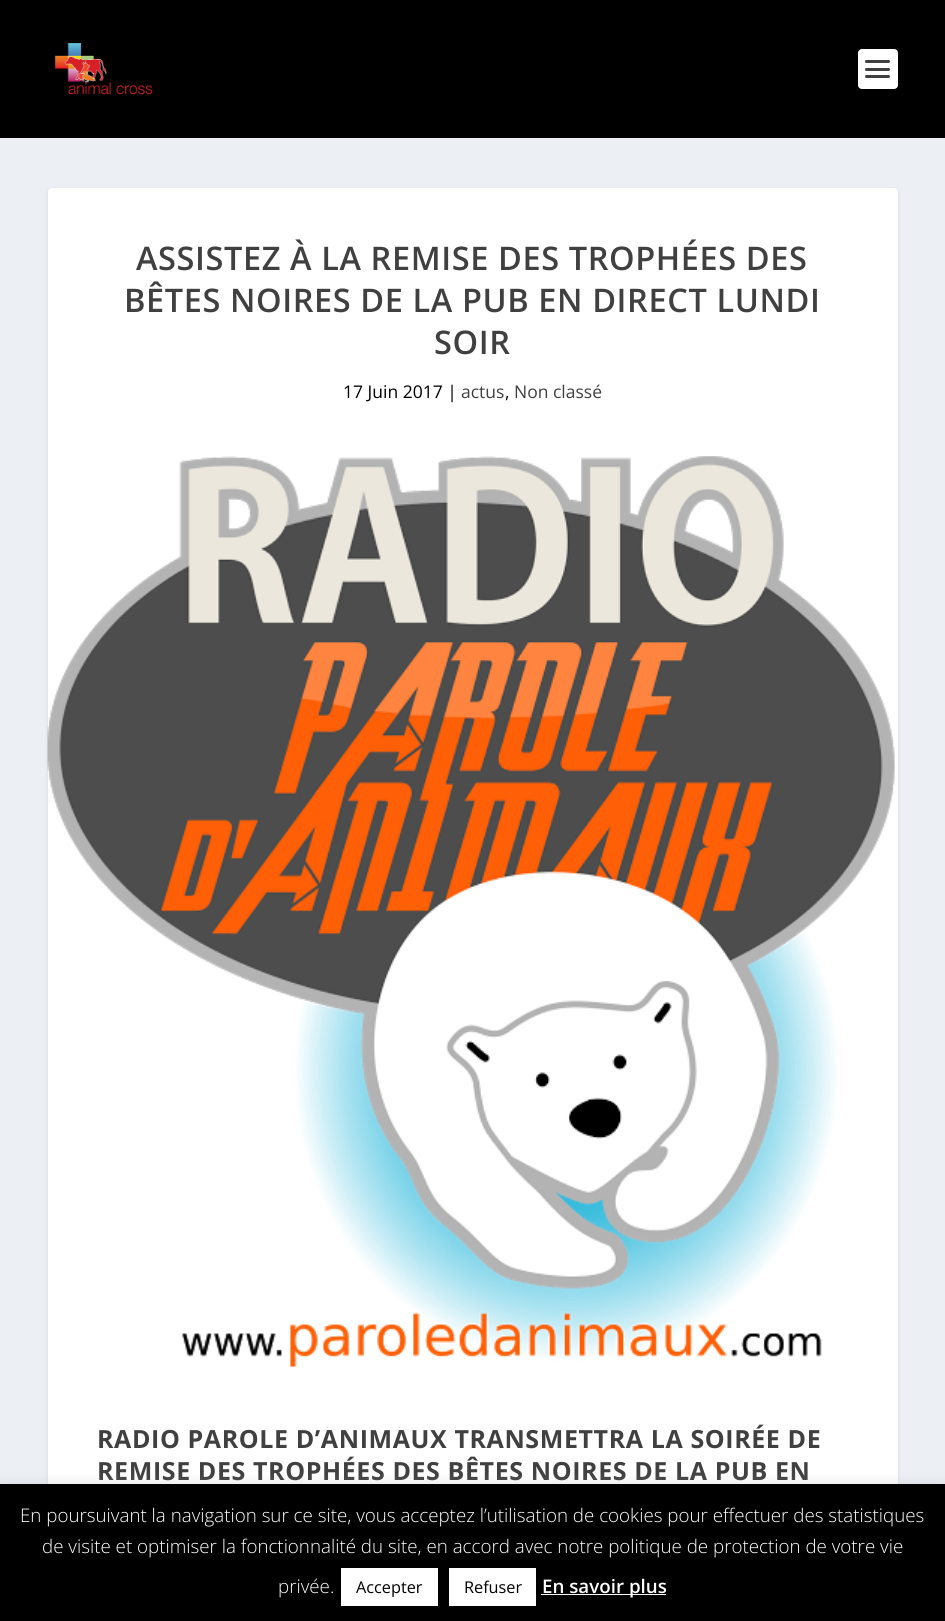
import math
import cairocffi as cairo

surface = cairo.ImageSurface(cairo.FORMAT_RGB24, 945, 1621)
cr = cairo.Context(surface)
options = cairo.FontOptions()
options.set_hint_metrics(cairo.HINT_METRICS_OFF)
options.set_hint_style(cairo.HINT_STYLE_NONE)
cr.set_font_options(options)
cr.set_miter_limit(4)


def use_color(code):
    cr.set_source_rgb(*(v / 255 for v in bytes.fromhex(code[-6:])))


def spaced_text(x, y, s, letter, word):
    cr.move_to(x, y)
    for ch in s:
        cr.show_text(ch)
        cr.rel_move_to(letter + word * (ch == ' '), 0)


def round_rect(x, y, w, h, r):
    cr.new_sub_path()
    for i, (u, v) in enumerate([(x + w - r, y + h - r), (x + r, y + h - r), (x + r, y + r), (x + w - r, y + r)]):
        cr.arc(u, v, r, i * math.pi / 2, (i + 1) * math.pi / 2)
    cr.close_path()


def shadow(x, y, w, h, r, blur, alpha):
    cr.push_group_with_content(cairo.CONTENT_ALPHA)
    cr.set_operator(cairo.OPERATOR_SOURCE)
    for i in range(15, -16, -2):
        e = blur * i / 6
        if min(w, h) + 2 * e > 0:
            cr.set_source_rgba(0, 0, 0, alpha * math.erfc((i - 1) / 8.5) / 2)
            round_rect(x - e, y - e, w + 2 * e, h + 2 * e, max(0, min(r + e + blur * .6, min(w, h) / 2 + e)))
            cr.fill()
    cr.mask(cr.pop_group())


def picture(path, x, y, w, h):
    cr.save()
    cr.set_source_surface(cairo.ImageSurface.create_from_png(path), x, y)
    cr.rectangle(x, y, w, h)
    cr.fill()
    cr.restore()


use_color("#ecf0f5")
cr.paint()
use_color("#000000")
cr.rectangle(0, 0, 945, 138)
cr.fill()
picture("img1.png", 54, 43, 99, 52)
use_color("#ffffff")
round_rect(858, 49, 40, 40, 4)
cr.fill()
use_color("#404040")
round_rect(865, 60, 25, 3, 1.5)
cr.fill()
round_rect(865, 68, 25, 3, 1.5)
cr.fill()
round_rect(865, 75, 25, 3, 1.5)
cr.fill()
use_color("#000000")
shadow(48, 189, 850, 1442, 4, 2, 0.1)
use_color("#ffffff")
round_rect(48, 188, 850, 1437, 4)
cr.fill()
cr.select_font_face("Open Sans SemiBold")
cr.set_font_size(32.5)
use_color("#404040")
spaced_text(136, 270, "ASSISTEZ À LA REMISE DES TROPHÉES DES", 0.6, 0)
spaced_text(124, 312, "BÊTES NOIRES DE LA PUB EN DIRECT LUNDI", 0.6, 0)
spaced_text(434, 354, "SOIR", 0.6, 0)
cr.select_font_face("Open Sans")
cr.set_font_size(17.5)
use_color("#000000")
cr.move_to(343, 398)
cr.show_text("17 Juin 2017 |")
use_color("#404040")
cr.move_to(461, 398)
cr.show_text("actus")
use_color("#000000")
cr.move_to(505, 398)
cr.show_text(",")
use_color("#404040")
cr.move_to(514, 398)
cr.show_text("Non classé")
picture("img2.png", 47, 456, 848, 911)
cr.select_font_face("Open Sans", cairo.FONT_SLANT_NORMAL, cairo.FONT_WEIGHT_BOLD)
cr.set_font_size(25)
spaced_text(97, 1448, "RADIO PAROLE D’ANIMAUX TRANSMETTRA LA SOIRÉE DE", 0.6, 0)
spaced_text(97, 1480, "REMISE DES TROPHÉES DES BÊTES NOIRES DE LA PUB EN", 0.6, 0)
use_color("#acabab")
shadow(0, 1483, 945, 137, 0, 6, 0.3)
use_color("#000000")
cr.rectangle(0, 1484, 945, 137)
cr.fill()
cr.select_font_face("Open Sans Light")
cr.set_font_size(18.75)
use_color("#ffffff")
cr.move_to(20, 1522)
cr.show_text("En poursuivant la navigation sur ce site, vous acceptez l’utilisation de cookies pour effectuer des statistiques")
cr.move_to(42, 1553)
cr.show_text("de visite et optimiser la fonctionnalité du site, en accord avec notre politique de protection de votre vie")
cr.move_to(278, 1593)
cr.show_text("privée.")
cr.rectangle(341, 1568, 97, 38)
cr.fill()
cr.select_font_face("Open Sans")
cr.set_font_size(16.25)
use_color("#000000")
cr.move_to(356, 1593)
cr.show_text("Accepter")
use_color("#ffffff")
cr.rectangle(449, 1568, 87, 38)
cr.fill()
use_color("#000000")
cr.move_to(464, 1593)
cr.show_text("Refuser")
use_color("#ffffff")
cr.rectangle(541, 1594, 125, 1)
cr.fill()
cr.select_font_face("Open Sans SemiBold")
cr.set_font_size(18.75)
cr.move_to(542, 1593)
cr.show_text("En savoir plus")
surface.write_to_png("result.png")
